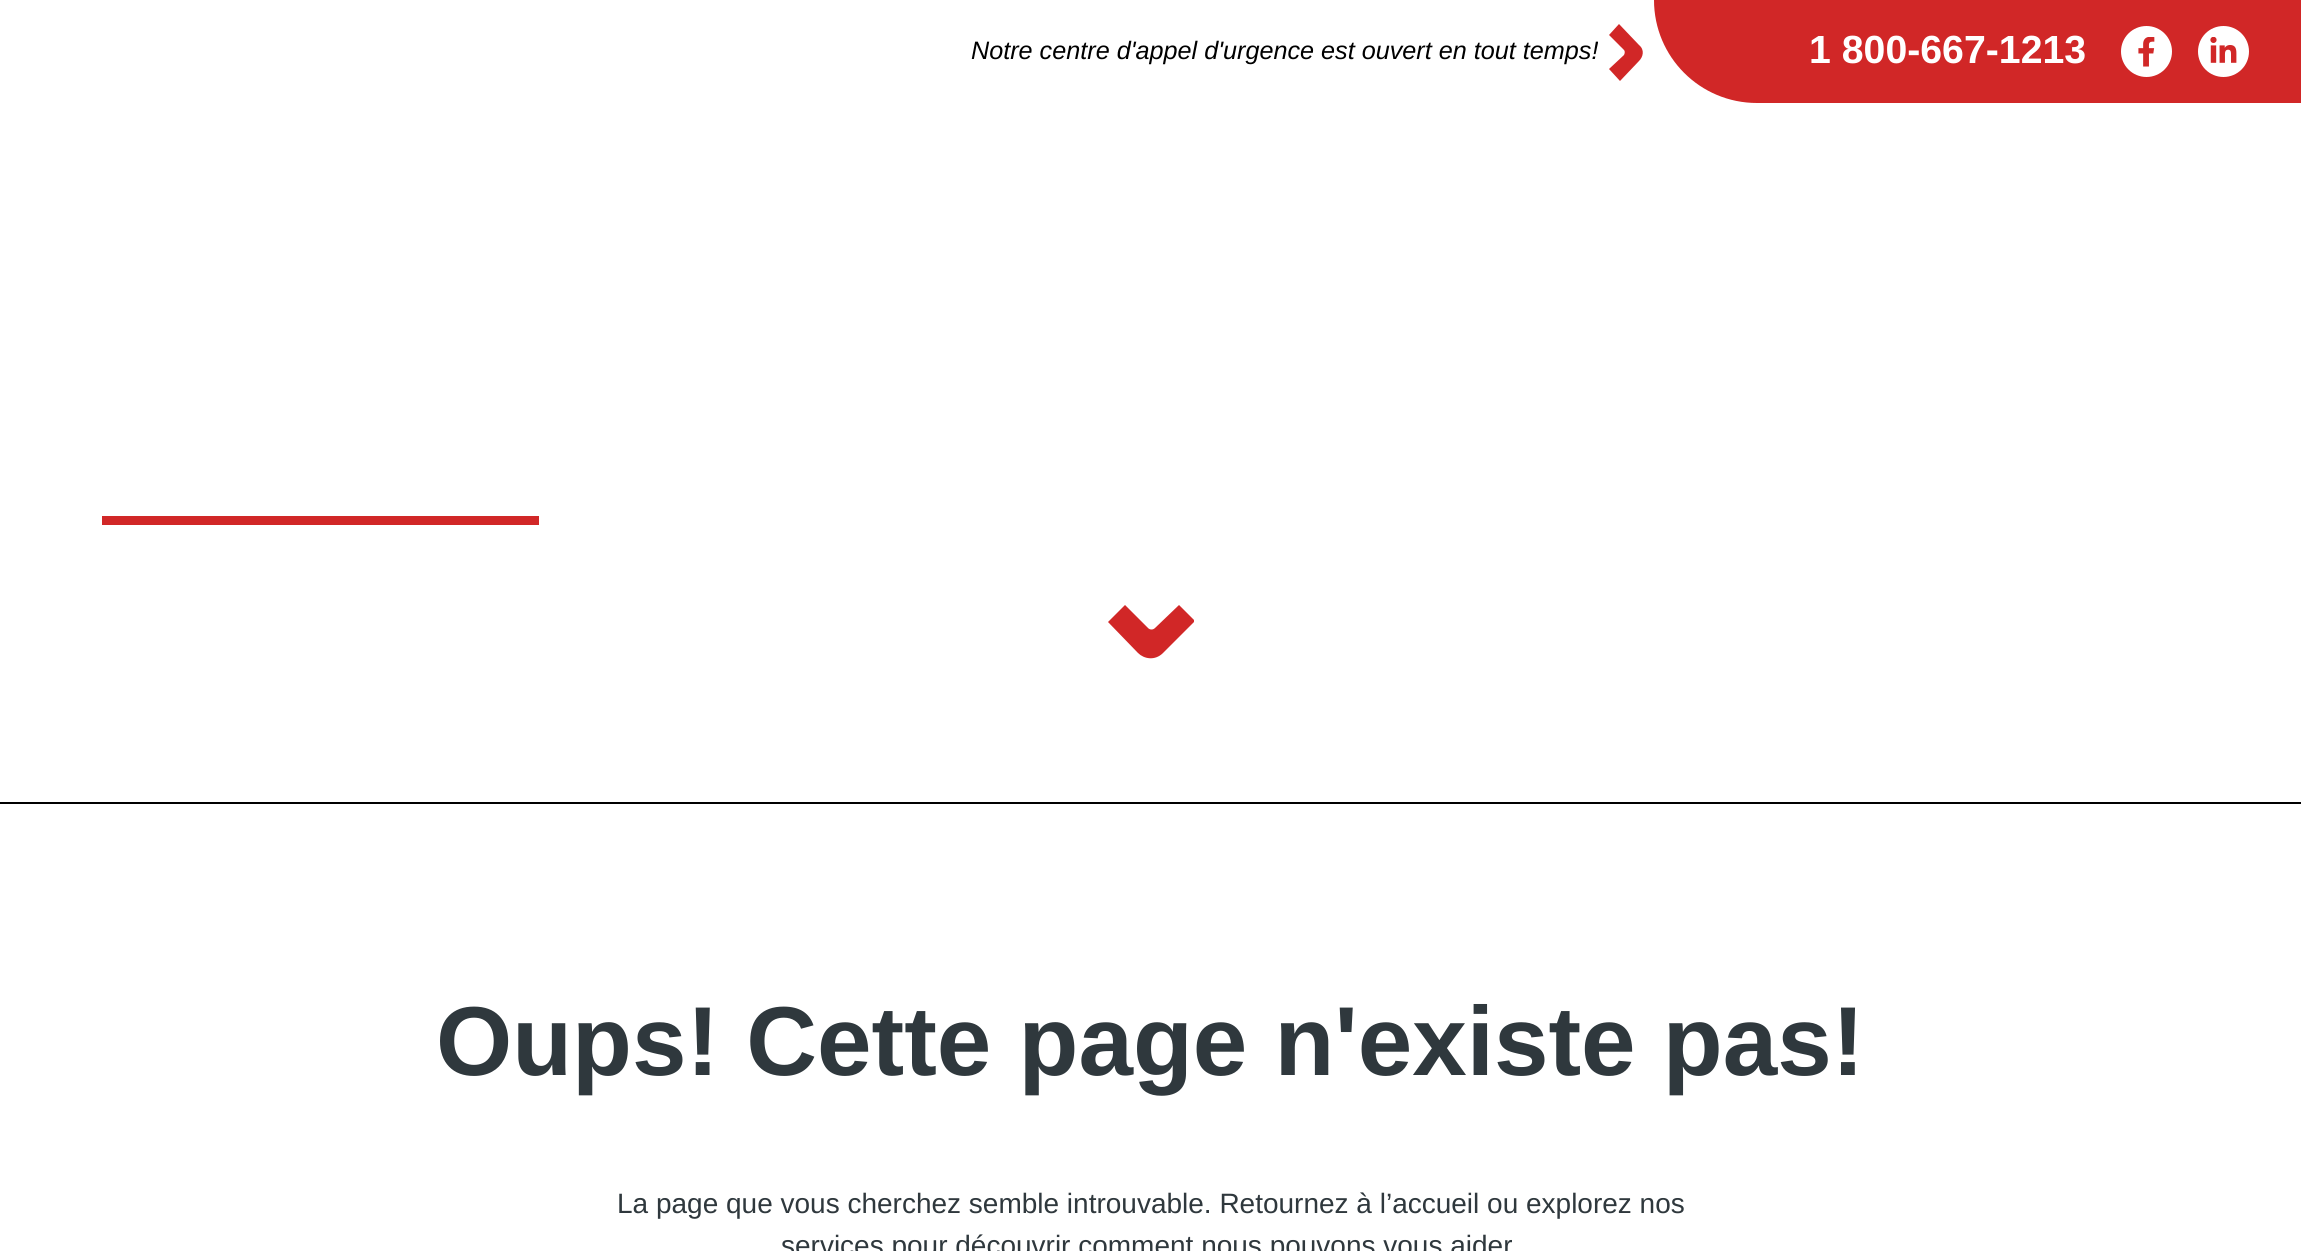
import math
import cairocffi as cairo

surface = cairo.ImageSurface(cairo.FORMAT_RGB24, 2301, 1251)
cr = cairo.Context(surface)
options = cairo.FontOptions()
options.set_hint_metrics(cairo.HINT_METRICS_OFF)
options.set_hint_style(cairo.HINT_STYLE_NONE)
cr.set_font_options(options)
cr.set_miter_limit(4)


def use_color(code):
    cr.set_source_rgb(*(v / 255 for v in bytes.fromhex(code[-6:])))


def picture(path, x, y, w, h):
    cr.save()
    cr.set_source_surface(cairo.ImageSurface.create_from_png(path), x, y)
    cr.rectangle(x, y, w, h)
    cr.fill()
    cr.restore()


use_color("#ffffff")
cr.paint()
cr.select_font_face("Liberation Sans", cairo.FONT_SLANT_ITALIC)
cr.set_font_size(25.2)
use_color("#000000")
cr.move_to(971, 59)
cr.show_text("Notre centre d'appel d'urgence est ouvert en tout temps!")
use_color("#d12727")
cr.new_path()
cr.move_to(1639, 45)
cr.line_to(1619, 24)
cr.line_to(1609, 35)
cr.line_to(1624, 50)
cr.curve_to(1625, 51, 1625, 53, 1624, 55)
cr.line_to(1609, 69)
cr.line_to(1620, 81)
cr.line_to(1639, 61)
cr.curve_to(1643, 57, 1645, 50, 1639, 45)
cr.close_path()
cr.fill()
cr.new_path()
cr.move_to(1654, 0)
cr.line_to(2301, 0)
cr.line_to(2301, 103)
cr.line_to(1757, 103)
cr.curve_to(1700, 103, 1654, 57, 1654, 0)
cr.close_path()
cr.fill()
cr.select_font_face("Liberation Sans", cairo.FONT_SLANT_NORMAL, cairo.FONT_WEIGHT_BOLD)
cr.set_font_size(39.25)
use_color("#ffffff")
cr.move_to(1809, 63)
cr.show_text("1 800-667-1213")
cr.new_path()
cr.arc(2146.5, 51.5, 25.5, 0, 2 * math.pi)
cr.fill()
picture("img1.png", 2138, 37, 17, 30)
cr.arc(2223.5, 51.5, 25.5, 0, 2 * math.pi)
cr.fill()
picture("img2.png", 2210, 37, 27, 26)
use_color("#000000")
cr.rectangle(0, 802, 2301, 2)
cr.fill()
use_color("#d12727")
cr.rectangle(102, 516, 437, 9)
cr.fill()
cr.new_path()
cr.move_to(1163, 653)
cr.curve_to(1155, 661, 1144, 659, 1138, 653)
cr.line_to(1108, 622)
cr.line_to(1125, 605)
cr.line_to(1148, 628)
cr.curve_to(1150, 630, 1153, 630, 1155, 628)
cr.line_to(1179, 605)
cr.line_to(1194, 620)
cr.line_to(1194, 622)
cr.close_path()
cr.fill()
cr.set_font_size(98)
use_color("#2f383d")
cr.move_to(436, 1075)
cr.show_text("Oups! Cette page n'existe pas!")
cr.select_font_face("Liberation Sans")
cr.set_font_size(28)
cr.move_to(617, 1213)
cr.show_text("La page que vous cherchez semble introuvable. Retournez à l’accueil ou explorez nos")
cr.move_to(781, 1255)
cr.show_text("services pour découvrir comment nous pouvons vous aider")
surface.write_to_png("result.png")
